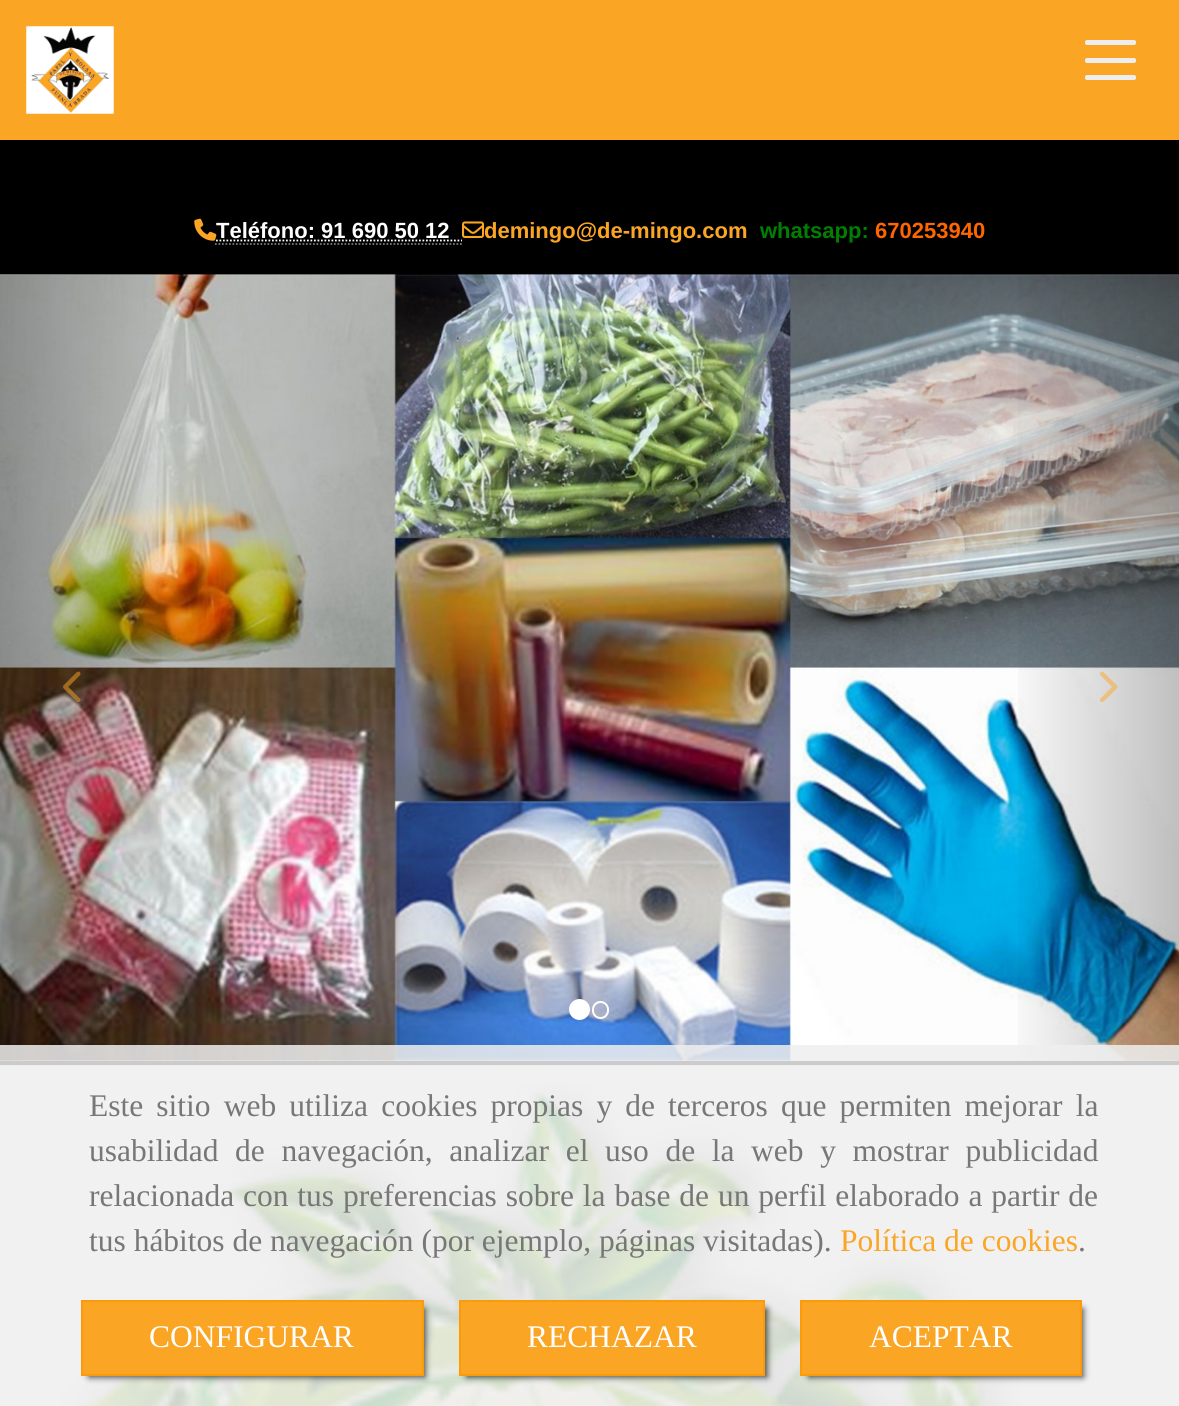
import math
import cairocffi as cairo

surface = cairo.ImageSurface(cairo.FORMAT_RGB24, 1179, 1406)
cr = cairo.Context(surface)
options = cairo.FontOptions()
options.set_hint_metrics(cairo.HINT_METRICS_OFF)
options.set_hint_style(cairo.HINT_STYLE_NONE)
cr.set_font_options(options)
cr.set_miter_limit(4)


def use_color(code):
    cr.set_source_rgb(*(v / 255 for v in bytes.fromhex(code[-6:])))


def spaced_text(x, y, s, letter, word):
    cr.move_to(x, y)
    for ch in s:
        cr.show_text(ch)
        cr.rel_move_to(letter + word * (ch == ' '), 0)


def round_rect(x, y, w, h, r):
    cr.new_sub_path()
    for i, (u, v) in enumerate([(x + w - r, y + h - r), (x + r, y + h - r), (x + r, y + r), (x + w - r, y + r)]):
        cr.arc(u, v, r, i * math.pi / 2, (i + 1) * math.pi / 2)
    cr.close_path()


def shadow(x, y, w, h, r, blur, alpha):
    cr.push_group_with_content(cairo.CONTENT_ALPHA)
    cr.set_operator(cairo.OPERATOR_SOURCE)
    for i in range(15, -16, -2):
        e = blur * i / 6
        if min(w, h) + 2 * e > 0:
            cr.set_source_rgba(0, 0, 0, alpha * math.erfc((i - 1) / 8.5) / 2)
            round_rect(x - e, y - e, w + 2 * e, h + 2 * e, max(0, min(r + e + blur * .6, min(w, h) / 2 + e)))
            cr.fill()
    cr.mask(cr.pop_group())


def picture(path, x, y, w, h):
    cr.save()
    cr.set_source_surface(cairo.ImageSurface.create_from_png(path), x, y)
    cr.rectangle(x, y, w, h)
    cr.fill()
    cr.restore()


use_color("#ffffff")
cr.paint()
use_color("#fba525")
cr.rectangle(0, 0, 1179, 140)
cr.fill()
picture("img1.png", 26, 26, 88, 88)
use_color("#eeeeee")
round_rect(1085, 58, 51, 5, 2)
cr.fill()
round_rect(1085, 40, 51, 5, 2)
cr.fill()
round_rect(1085, 75, 51, 5, 2)
cr.fill()
use_color("#000000")
cr.rectangle(0, 140, 1179, 135)
cr.fill()
picture("img2.png", 194, 218, 23, 23)
cr.select_font_face("Liberation Sans", cairo.FONT_SLANT_NORMAL, cairo.FONT_WEIGHT_BOLD)
cr.set_font_size(22)
use_color("#ffffff")
cr.move_to(216, 238)
cr.show_text("Teléfono: 91 690 50 12")
cr.new_path()
cr.move_to(215, 244)
cr.line_to(462, 244)
use_color("#777777")
cr.set_line_width(1.8)
cr.set_dash([1.75, 1.75])
cr.stroke()
cr.new_path()
cr.move_to(216, 240.5)
cr.line_to(462, 240.5)
use_color("#ffffff")
cr.stroke()
picture("img3.png", 462, 221, 23, 17)
use_color("#fba525")
cr.move_to(484, 238)
cr.show_text("demingo@de-mingo.com")
use_color("#008000")
cr.move_to(760, 238)
cr.show_text("whatsapp:")
use_color("#ff6600")
cr.move_to(875, 238)
cr.show_text("670253940")
use_color("#000000")
cr.rectangle(0, 1061, 1179, 4)
cr.fill()
picture("img4.png", 0, 274, 1179, 787)
gradient = cairo.LinearGradient(0, 669, 177, 669)
gradient.add_color_stop_rgba(0, 0, 0, 0, 0.25)
gradient.add_color_stop_rgba(1, 0, 0, 0, 0)
cr.set_source(gradient)
cr.rectangle(0, 275, 162, 786)
cr.fill()
picture("img5.png", 63, 671, 18, 32)
use_color("#ffffff")
cr.arc(579.5, 1009.5, 9.5, 0, 2 * math.pi)
cr.fill_preserve()
cr.set_line_width(2)
cr.set_dash([])
cr.stroke()
round_rect(593, 1002, 15, 16, 7.5)
cr.stroke()
gradient = cairo.LinearGradient(1003, 669, 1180, 669)
gradient.add_color_stop_rgba(0, 0, 0, 0, 0)
gradient.add_color_stop_rgba(1, 0, 0, 0, 0.25)
cr.set_source(gradient)
cr.rectangle(1018, 275, 161, 786)
cr.fill()
picture("img6.png", 1099, 671, 19, 32)
picture("img7.png", 61, 1083, 960, 323)
cr.set_source_rgba(0.933, 0.933, 0.933, 0.85)
cr.rectangle(0, 1045, 1179, 361)
cr.fill()
cr.select_font_face("Liberation Serif")
cr.set_font_size(31.5)
use_color("#777777")
spaced_text(89, 1116, "Este sitio web utiliza cookies propias y de terceros que permiten mejorar la", 0, 5.25)
spaced_text(89, 1161, "usabilidad de navegación, analizar el uso de la web y mostrar publicidad", 0, 8.75)
spaced_text(89, 1206, "relacionada con tus preferencias sobre la base de un perfil elaborado a partir de", 0, 1)
cr.move_to(89, 1251)
cr.show_text("tus hábitos de navegación (por ejemplo, páginas visitadas).")
use_color("#fba525")
cr.move_to(840, 1251)
cr.show_text("Política de cookies")
use_color("#777777")
cr.move_to(1078, 1251)
cr.show_text(".")
use_color("#000000")
shadow(89, 1309, 336, 68, 0, 3.5, 0.75)
use_color("#fba525")
cr.rectangle(82, 1301, 341, 74)
cr.fill_preserve()
use_color("#fb9b0c")
cr.stroke()
use_color("#ffffff")
cr.move_to(149, 1347)
cr.show_text("CONFIGURAR")
use_color("#000000")
shadow(467, 1309, 300, 68, 0, 3.5, 0.75)
use_color("#fba525")
cr.rectangle(460, 1301, 304, 74)
cr.fill_preserve()
use_color("#fb9b0c")
cr.stroke()
use_color("#ffffff")
cr.move_to(527, 1347)
cr.show_text("RECHAZAR")
use_color("#000000")
shadow(809, 1309, 274, 68, 0, 3.5, 0.75)
use_color("#fba525")
cr.rectangle(801, 1301, 280, 74)
cr.fill_preserve()
use_color("#fb9b0c")
cr.stroke()
use_color("#ffffff")
cr.move_to(869, 1347)
cr.show_text("ACEPTAR")
surface.write_to_png("result.png")
